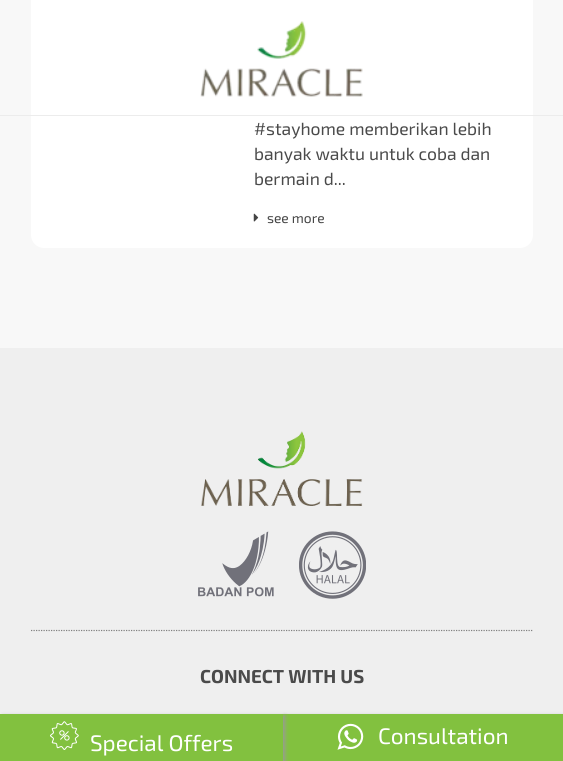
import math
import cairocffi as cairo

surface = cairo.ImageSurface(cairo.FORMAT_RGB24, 563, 761)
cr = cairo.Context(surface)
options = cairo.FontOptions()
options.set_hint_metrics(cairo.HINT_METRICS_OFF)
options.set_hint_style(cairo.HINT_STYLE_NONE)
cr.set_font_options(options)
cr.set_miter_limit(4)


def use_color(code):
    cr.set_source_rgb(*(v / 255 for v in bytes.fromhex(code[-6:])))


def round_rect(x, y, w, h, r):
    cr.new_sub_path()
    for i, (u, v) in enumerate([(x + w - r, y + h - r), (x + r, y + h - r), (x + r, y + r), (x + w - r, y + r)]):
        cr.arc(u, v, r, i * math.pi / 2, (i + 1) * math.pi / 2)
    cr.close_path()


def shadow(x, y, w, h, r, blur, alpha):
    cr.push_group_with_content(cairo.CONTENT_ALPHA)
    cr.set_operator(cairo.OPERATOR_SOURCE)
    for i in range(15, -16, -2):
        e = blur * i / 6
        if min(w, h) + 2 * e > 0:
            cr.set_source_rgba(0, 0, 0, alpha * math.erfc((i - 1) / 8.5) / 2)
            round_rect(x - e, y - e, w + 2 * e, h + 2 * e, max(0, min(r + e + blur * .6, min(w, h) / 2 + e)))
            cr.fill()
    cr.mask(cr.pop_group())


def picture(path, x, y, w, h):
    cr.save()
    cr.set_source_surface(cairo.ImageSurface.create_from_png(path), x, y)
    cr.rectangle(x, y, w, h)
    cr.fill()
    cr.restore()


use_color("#f8f8f8")
cr.paint()
use_color("#ffffff")
round_rect(31, -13, 502, 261, 13)
cr.fill()
use_color("#f8f8f8")
cr.rectangle(31, 0, 502, 115)
cr.fill()
use_color("#ececec")
cr.rectangle(0, 115, 563, 1)
cr.fill()
use_color("#ffffff")
cr.rectangle(31, 0, 502, 115)
cr.fill()
picture("img1.png", 200, 21, 163, 76)
cr.select_font_face("Exo 2")
cr.set_font_size(17.5)
use_color("#4a4a4a")
cr.move_to(254, 135)
cr.show_text("#stayhome memberikan lebih")
cr.move_to(254, 160)
cr.show_text("banyak waktu untuk coba dan")
cr.move_to(254, 185)
cr.show_text("bermain d...")
picture("img2.png", 253, 213, 6, 9)
cr.set_font_size(13.75)
use_color("#444444")
cr.move_to(267, 223)
cr.show_text("see more")
use_color("#efefef")
cr.rectangle(0, 348, 563, 366)
cr.fill()
cr.new_path()
cr.move_to(31, 630.5)
cr.line_to(532.5, 630.5)
use_color("#808080")
cr.set_line_width(1.2)
cr.set_dash([1.25, 1.25])
cr.stroke()
picture("img3.png", 201, 431, 162, 75)
picture("img4.png", 198, 531, 76, 66)
picture("img5.png", 299, 531, 67, 68)
cr.select_font_face("Exo 2", cairo.FONT_SLANT_NORMAL, cairo.FONT_WEIGHT_BOLD)
cr.set_font_size(18.75)
use_color("#4a4a4a")
cr.move_to(200, 683)
cr.show_text("CONNECT WITH US")
use_color("#999999")
shadow(285, 716, 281, 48, 0, 2, 1)
use_color("#82c13f")
cr.rectangle(283, 714, 280, 47)
cr.fill()
use_color("#999999")
shadow(3, 716, 282, 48, 0, 2, 1)
use_color("#82c13f")
cr.rectangle(0, 714, 283, 47)
cr.fill()
picture("img6.png", 50, 721, 29, 29)
cr.select_font_face("Exo 2")
cr.set_font_size(22.5)
use_color("#ffffff")
cr.move_to(90, 751)
cr.show_text("Special Offers")
picture("img7.png", 337, 723, 27, 27)
cr.move_to(378, 744)
cr.show_text("Consultation")
surface.write_to_png("result.png")
